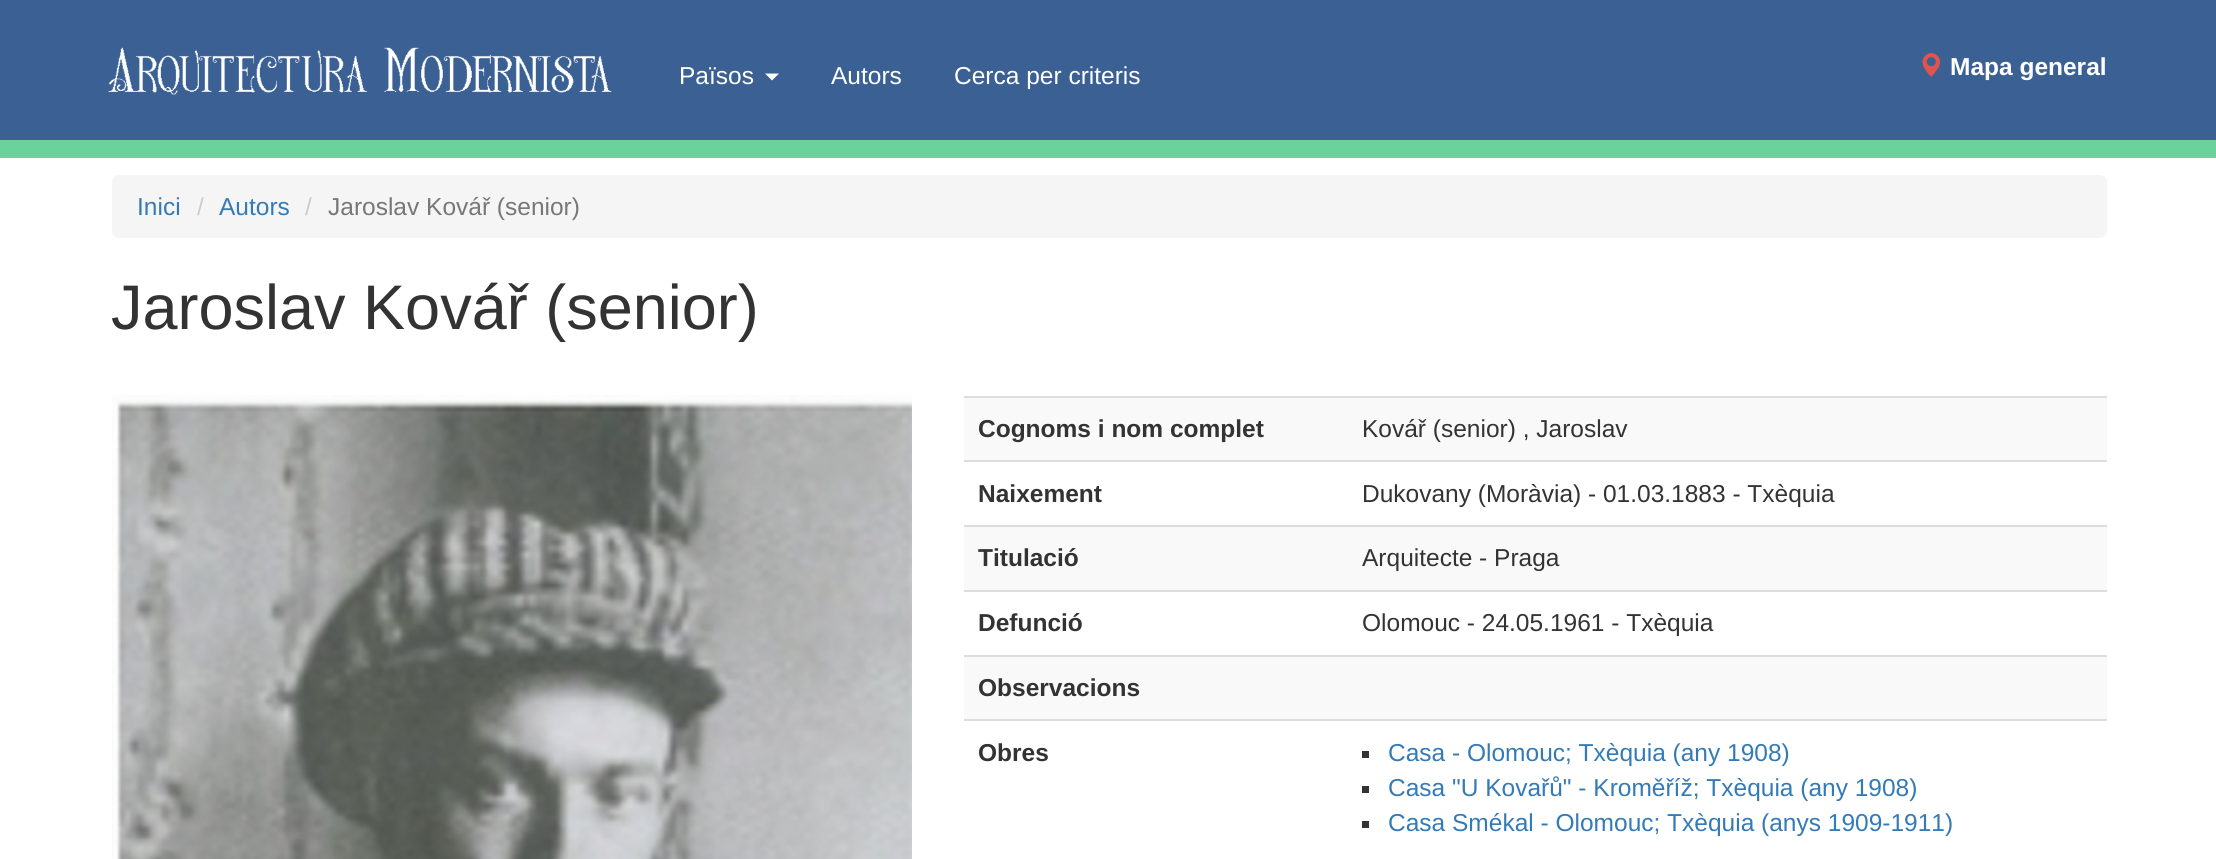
import math
import cairocffi as cairo

surface = cairo.ImageSurface(cairo.FORMAT_RGB24, 2216, 859)
cr = cairo.Context(surface)
options = cairo.FontOptions()
options.set_hint_metrics(cairo.HINT_METRICS_OFF)
options.set_hint_style(cairo.HINT_STYLE_NONE)
cr.set_font_options(options)
cr.set_miter_limit(4)


def use_color(code):
    cr.set_source_rgb(*(v / 255 for v in bytes.fromhex(code[-6:])))


def round_rect(x, y, w, h, r):
    cr.new_sub_path()
    for i, (u, v) in enumerate([(x + w - r, y + h - r), (x + r, y + h - r), (x + r, y + r), (x + w - r, y + r)]):
        cr.arc(u, v, r, i * math.pi / 2, (i + 1) * math.pi / 2)
    cr.close_path()


def picture(path, x, y, w, h):
    cr.save()
    cr.set_source_surface(cairo.ImageSurface.create_from_png(path), x, y)
    cr.rectangle(x, y, w, h)
    cr.fill()
    cr.restore()


use_color("#ffffff")
cr.paint()
use_color("#3b6094")
cr.rectangle(0, 0, 2216, 140)
cr.fill()
use_color("#6bd29b")
cr.rectangle(0, 140, 2216, 18)
cr.fill()
picture("img1.png", 108, 47, 504, 48)
cr.select_font_face("Liberation Sans")
cr.set_font_size(24.5)
use_color("#ffffff")
cr.move_to(679, 84)
cr.show_text("Països")
cr.new_path()
cr.move_to(765, 73.5)
cr.line_to(779, 73.5)
cr.line_to(772, 80.5)
cr.close_path()
cr.fill()
cr.move_to(831, 84)
cr.show_text("Autors")
cr.move_to(954, 84)
cr.show_text("Cerca per criteris")
picture("img2.png", 1922, 53, 18, 24)
cr.select_font_face("Liberation Sans", cairo.FONT_SLANT_NORMAL, cairo.FONT_WEIGHT_BOLD)
cr.move_to(1950, 75)
cr.show_text("Mapa general")
use_color("#f5f5f5")
round_rect(112, 175, 1995, 63, 7)
cr.fill()
cr.select_font_face("Liberation Sans")
use_color("#337ab7")
cr.move_to(137, 215)
cr.show_text("Inici")
use_color("#cccccc")
cr.move_to(197, 215)
cr.show_text("/")
use_color("#337ab7")
cr.move_to(219, 215)
cr.show_text("Autors")
use_color("#cccccc")
cr.move_to(305, 215)
cr.show_text("/")
use_color("#777777")
cr.move_to(328, 215)
cr.show_text("Jaroslav Kovář (senior)")
cr.set_font_size(63)
use_color("#333333")
cr.move_to(111, 329)
cr.show_text("Jaroslav Kovář (senior)")
picture("img3.png", 112, 395, 800, 464)
use_color("#f9f9f9")
cr.rectangle(964, 398, 1143, 62)
cr.fill()
cr.select_font_face("Liberation Sans", cairo.FONT_SLANT_NORMAL, cairo.FONT_WEIGHT_BOLD)
cr.set_font_size(24.5)
use_color("#333333")
cr.move_to(978, 437)
cr.show_text("Cognoms i nom complet")
use_color("#dddddd")
cr.rectangle(964, 396, 1143, 2)
cr.fill()
cr.select_font_face("Liberation Sans")
use_color("#333333")
cr.move_to(1362, 437)
cr.show_text("Kovář (senior) , Jaroslav")
cr.select_font_face("Liberation Sans", cairo.FONT_SLANT_NORMAL, cairo.FONT_WEIGHT_BOLD)
cr.move_to(978, 502)
cr.show_text("Naixement")
use_color("#dddddd")
cr.rectangle(964, 460, 1143, 2)
cr.fill()
cr.select_font_face("Liberation Sans")
use_color("#333333")
cr.move_to(1362, 502)
cr.show_text("Dukovany (Moràvia) - 01.03.1883 - Txèquia")
use_color("#f9f9f9")
cr.rectangle(964, 527, 1143, 63)
cr.fill()
cr.select_font_face("Liberation Sans", cairo.FONT_SLANT_NORMAL, cairo.FONT_WEIGHT_BOLD)
use_color("#333333")
cr.move_to(978, 566)
cr.show_text("Titulació")
use_color("#dddddd")
cr.rectangle(964, 525, 1143, 2)
cr.fill()
cr.select_font_face("Liberation Sans")
use_color("#333333")
cr.move_to(1362, 566)
cr.show_text("Arquitecte - Praga")
cr.select_font_face("Liberation Sans", cairo.FONT_SLANT_NORMAL, cairo.FONT_WEIGHT_BOLD)
cr.move_to(978, 631)
cr.show_text("Defunció")
use_color("#dddddd")
cr.rectangle(964, 590, 1143, 2)
cr.fill()
cr.select_font_face("Liberation Sans")
use_color("#333333")
cr.move_to(1362, 631)
cr.show_text("Olomouc - 24.05.1961 - Txèquia")
use_color("#f9f9f9")
cr.rectangle(964, 657, 1143, 62)
cr.fill()
use_color("#dddddd")
cr.rectangle(964, 655, 1143, 2)
cr.fill()
cr.select_font_face("Liberation Sans", cairo.FONT_SLANT_NORMAL, cairo.FONT_WEIGHT_BOLD)
use_color("#333333")
cr.move_to(978, 696)
cr.show_text("Observacions")
cr.move_to(978, 761)
cr.show_text("Obres")
use_color("#dddddd")
cr.rectangle(964, 719, 1143, 2)
cr.fill()
use_color("#333333")
cr.rectangle(1362, 751, 7, 7)
cr.fill()
cr.select_font_face("Liberation Sans")
use_color("#337ab7")
cr.move_to(1388, 761)
cr.show_text("Casa - Olomouc; Txèquia (any 1908)")
use_color("#333333")
cr.rectangle(1362, 786, 7, 7)
cr.fill()
use_color("#337ab7")
cr.move_to(1388, 796)
cr.show_text("Casa \"U Kovařů\" - Kroměříž; Txèquia (any 1908)")
use_color("#333333")
cr.rectangle(1362, 821, 7, 7)
cr.fill()
use_color("#337ab7")
cr.move_to(1388, 831)
cr.show_text("Casa Smékal - Olomouc; Txèquia (anys 1909-1911)")
surface.write_to_png("result.png")
